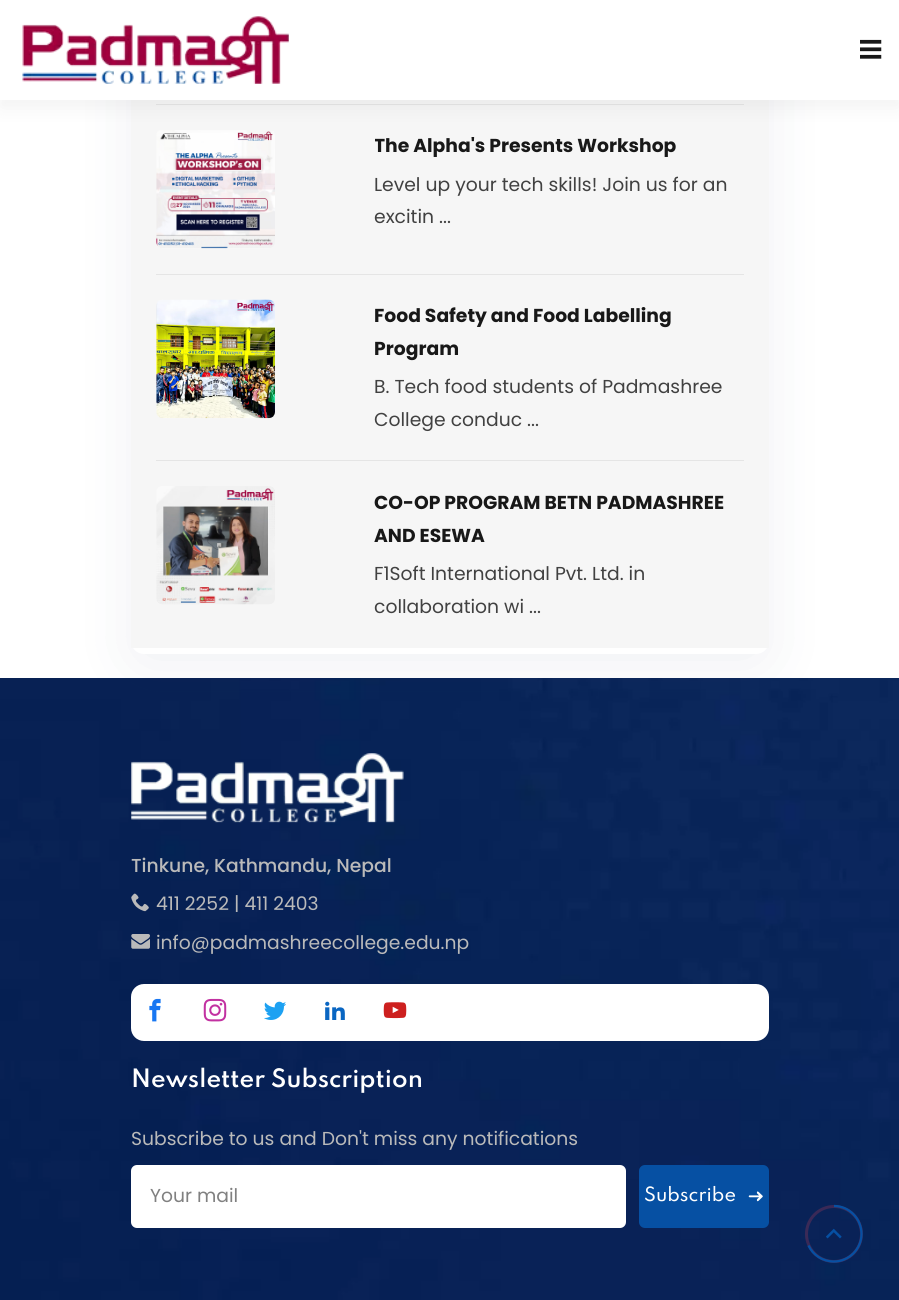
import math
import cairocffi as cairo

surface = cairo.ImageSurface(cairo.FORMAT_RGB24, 899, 1300)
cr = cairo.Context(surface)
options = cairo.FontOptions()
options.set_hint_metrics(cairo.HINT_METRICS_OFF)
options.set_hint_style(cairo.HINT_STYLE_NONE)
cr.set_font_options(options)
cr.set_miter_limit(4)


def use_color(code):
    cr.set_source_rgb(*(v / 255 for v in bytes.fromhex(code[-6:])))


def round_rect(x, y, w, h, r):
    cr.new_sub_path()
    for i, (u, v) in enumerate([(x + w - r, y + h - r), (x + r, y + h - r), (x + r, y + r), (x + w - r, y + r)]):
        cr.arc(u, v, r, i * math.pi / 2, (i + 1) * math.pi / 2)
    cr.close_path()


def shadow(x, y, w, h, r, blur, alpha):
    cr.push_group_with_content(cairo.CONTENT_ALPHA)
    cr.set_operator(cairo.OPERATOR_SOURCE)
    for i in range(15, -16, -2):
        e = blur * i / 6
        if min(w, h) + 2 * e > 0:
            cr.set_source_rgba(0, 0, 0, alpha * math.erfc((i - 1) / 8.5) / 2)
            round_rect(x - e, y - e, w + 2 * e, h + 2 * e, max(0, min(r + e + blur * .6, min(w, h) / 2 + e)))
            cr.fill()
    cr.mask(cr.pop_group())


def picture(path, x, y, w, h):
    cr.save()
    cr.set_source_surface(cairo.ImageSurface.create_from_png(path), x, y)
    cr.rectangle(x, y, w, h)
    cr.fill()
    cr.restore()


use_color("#ffffff")
cr.paint()
picture("img6.png", 0, 678, 899, 622)
picture("img7.png", 131, 753, 273, 70)
use_color("#1a2e55")
shadow(131, -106, 638, 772, 13, 31, 0.07)
use_color("#ffffff")
round_rect(131, -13, 638, 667, 13)
cr.fill()
use_color("#f6f6f6")
cr.rectangle(131, 100, 638, 548)
cr.fill()
use_color("#e5e5e5")
cr.rectangle(156, 104, 588, 1)
cr.fill()
picture("img3.png", 156, 130, 119, 119)
use_color("#000000")
shadow(0, 8, 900, 100, 0, 9.5, 0.05)
use_color("#ffffff")
cr.rectangle(0, 0, 899, 100)
cr.fill()
picture("img1.png", 22, 16, 267, 68)
picture("img2.png", 860, 39, 22, 20)
use_color("#e5e5e5")
cr.rectangle(156, 274, 588, 1)
cr.fill()
cr.save()
cr.rectangle(375, 130, 369, 33)
cr.clip()
cr.select_font_face("Poppins", cairo.FONT_SLANT_NORMAL, cairo.FONT_WEIGHT_BOLD)
cr.set_font_size(18.75)
use_color("#181818")
cr.move_to(374, 152)
cr.show_text("The Alpha's Presents Workshop")
cr.restore()
cr.select_font_face("Poppins")
cr.set_font_size(18.75)
use_color("#414141")
cr.move_to(374, 191)
cr.show_text("Level up your tech skills! Join us for an")
cr.move_to(374, 223)
cr.show_text("excitin ...")
use_color("#e5e5e5")
cr.rectangle(156, 460, 588, 1)
cr.fill()
picture("img4.png", 156, 299, 119, 120)
cr.select_font_face("Poppins", cairo.FONT_SLANT_NORMAL, cairo.FONT_WEIGHT_BOLD)
use_color("#181818")
cr.move_to(374, 322)
cr.show_text("Food Safety and Food Labelling")
cr.move_to(374, 355)
cr.show_text("Program")
cr.select_font_face("Poppins")
use_color("#414141")
cr.move_to(374, 393)
cr.show_text("B. Tech food students of Padmashree")
cr.move_to(374, 426)
cr.show_text("College conduc ...")
picture("img5.png", 156, 486, 119, 119)
cr.select_font_face("Poppins", cairo.FONT_SLANT_NORMAL, cairo.FONT_WEIGHT_BOLD)
use_color("#181818")
cr.move_to(374, 509)
cr.show_text("CO-OP PROGRAM BETN PADMASHREE")
cr.move_to(374, 542)
cr.show_text("AND ESEWA")
cr.select_font_face("Poppins")
use_color("#414141")
cr.move_to(374, 580)
cr.show_text("F1Soft International Pvt. Ltd. in")
cr.move_to(374, 613)
cr.show_text("collaboration wi ...")
cr.select_font_face("Poppins Medium")
use_color("#bababa")
cr.move_to(131, 872)
cr.show_text("Tinkune, Kathmandu, Nepal")
picture("img8.png", 131, 893, 18, 19)
cr.select_font_face("Poppins")
cr.move_to(156, 910)
cr.show_text("411 2252 | 411 2403")
picture("img9.png", 131, 934, 19, 15)
cr.move_to(156, 949)
cr.show_text("info@padmashreecollege.edu.np")
use_color("#ffffff")
round_rect(131, 984, 638, 57, 13)
cr.fill()
picture("img10.png", 149, 998, 12, 24)
picture("img11.png", 203, 998, 24, 24)
picture("img12.png", 264, 1001, 22, 19)
picture("img13.png", 325, 1001, 20, 19)
picture("img14.png", 383, 1002, 24, 17)
cr.select_font_face("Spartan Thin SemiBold")
cr.set_font_size(22.5)
cr.move_to(131, 1087)
cr.show_text("Newsletter Subscription")
cr.select_font_face("Poppins")
cr.set_font_size(18.75)
use_color("#bababa")
cr.move_to(131, 1145)
cr.show_text("Subscribe to us and Don't miss any notifications")
use_color("#ffffff")
round_rect(131, 1165, 495, 63, 6)
cr.fill()
use_color("#808080")
cr.move_to(150, 1202)
cr.show_text("Your mail")
use_color("#0650a3")
round_rect(639, 1165, 130, 63, 6)
cr.fill()
cr.select_font_face("Spartan Thin Medium")
cr.set_font_size(17.5)
use_color("#ffffff")
cr.move_to(644, 1201)
cr.show_text("Subscribe")
picture("img15.png", 748, 1191, 15, 11)
cr.arc(834, 1234, 27.5, 0, 2 * math.pi)
cr.set_source_rgba(1, 0.278, 0.341, 0.2)
cr.set_line_width(3)
cr.stroke()
cr.new_path()
cr.move_to(834, 1206)
cr.curve_to(849, 1206, 861.5, 1218.5, 861.5, 1234)
cr.curve_to(861.5, 1249, 849, 1261.5, 834, 1261.5)
cr.curve_to(822.5, 1261.5, 813, 1255, 808.5, 1245.5)
use_color("#0650a3")
cr.set_line_width(2.3)
cr.stroke()
picture("img16.png", 826, 1228, 16, 11)
surface.write_to_png("result.png")
